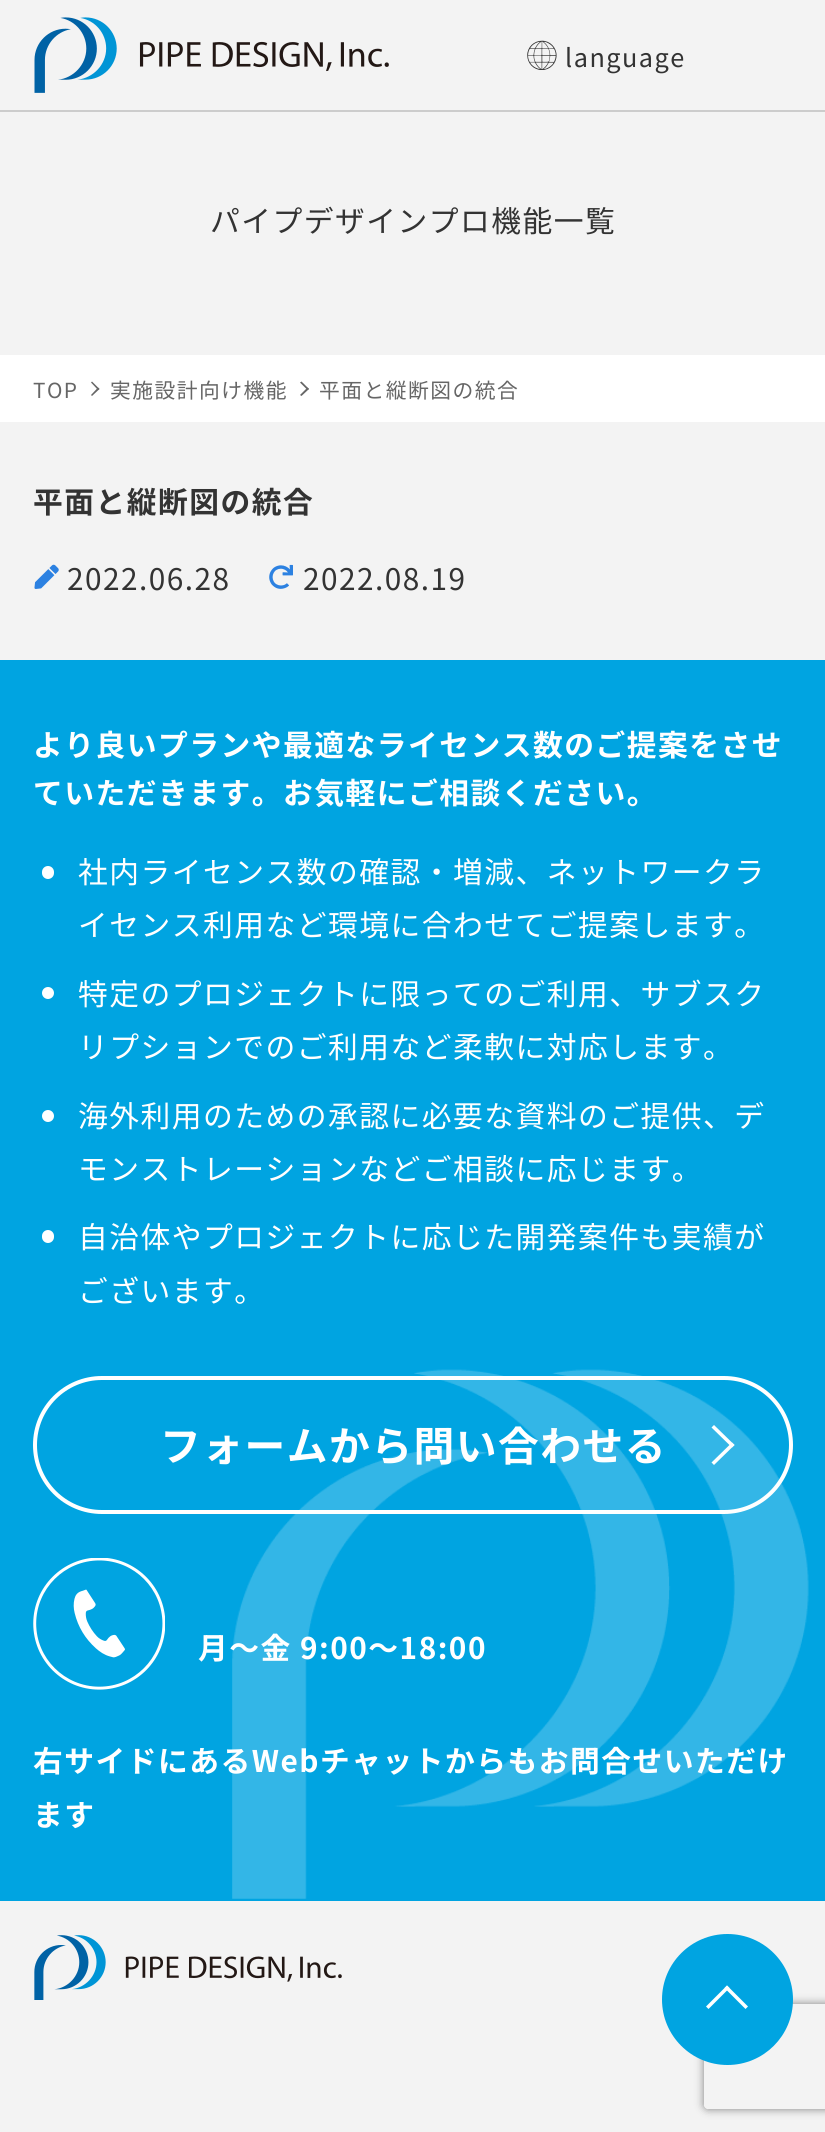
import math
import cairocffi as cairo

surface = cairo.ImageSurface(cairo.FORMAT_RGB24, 825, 2132)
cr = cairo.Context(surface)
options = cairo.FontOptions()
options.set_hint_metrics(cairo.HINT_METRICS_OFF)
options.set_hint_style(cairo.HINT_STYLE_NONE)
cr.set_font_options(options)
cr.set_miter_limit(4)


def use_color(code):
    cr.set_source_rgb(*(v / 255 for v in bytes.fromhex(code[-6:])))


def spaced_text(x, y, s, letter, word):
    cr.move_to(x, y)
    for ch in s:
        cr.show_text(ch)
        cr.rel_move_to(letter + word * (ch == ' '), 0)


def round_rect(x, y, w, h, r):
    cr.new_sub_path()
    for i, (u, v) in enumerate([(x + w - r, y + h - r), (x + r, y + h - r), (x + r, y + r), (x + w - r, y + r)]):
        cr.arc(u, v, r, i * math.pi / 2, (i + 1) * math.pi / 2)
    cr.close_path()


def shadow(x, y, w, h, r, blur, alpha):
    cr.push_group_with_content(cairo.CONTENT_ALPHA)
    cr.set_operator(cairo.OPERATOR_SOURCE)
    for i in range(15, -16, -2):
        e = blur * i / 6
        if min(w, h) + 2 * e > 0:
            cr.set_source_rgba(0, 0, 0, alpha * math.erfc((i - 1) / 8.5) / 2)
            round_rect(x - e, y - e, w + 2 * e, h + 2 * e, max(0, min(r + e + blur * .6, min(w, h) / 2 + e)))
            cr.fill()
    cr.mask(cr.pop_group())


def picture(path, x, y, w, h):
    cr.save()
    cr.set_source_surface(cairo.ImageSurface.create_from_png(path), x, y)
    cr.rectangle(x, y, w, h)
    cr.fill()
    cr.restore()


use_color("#f3f3f3")
cr.paint()
use_color("#cccccc")
cr.rectangle(0, 110, 825, 2)
cr.fill()
picture("img1.png", 34, 17, 355, 76)
picture("img2.png", 527, 40, 30, 30)
cr.select_font_face("Noto Sans JP")
cr.set_font_size(25.25)
use_color("#333333")
spaced_text(565, 67, "language", 1.5, 0)
cr.set_font_size(29.75)
spaced_text(210, 232, "パイプデザインプロ機能一覧", 1.5, 0)
use_color("#ffffff")
cr.rectangle(0, 355, 825, 67)
cr.fill()
cr.set_font_size(20.75)
use_color("#666666")
spaced_text(33, 398, "TOP", 1.5, 0)
cr.new_path()
cr.move_to(92, 381.5)
cr.line_to(99.5, 389)
cr.line_to(98, 390)
cr.line_to(91, 382.5)
cr.close_path()
cr.fill()
cr.new_path()
cr.move_to(98, 387.5)
cr.line_to(99.5, 389)
cr.line_to(92, 396)
cr.line_to(91, 395)
cr.close_path()
cr.fill()
spaced_text(110, 398, "実施設計向け機能", 1.5, 0)
cr.new_path()
cr.move_to(301.5, 381.5)
cr.line_to(309, 389)
cr.line_to(307.5, 390)
cr.line_to(300, 382.5)
cr.close_path()
cr.fill()
cr.new_path()
cr.move_to(307.5, 387.5)
cr.line_to(309, 389)
cr.line_to(301.5, 396)
cr.line_to(300, 395)
cr.close_path()
cr.fill()
spaced_text(319, 398, "平面と縦断図の統合", 1.5, 0)
cr.select_font_face("Noto Sans JP", cairo.FONT_SLANT_NORMAL, cairo.FONT_WEIGHT_BOLD)
cr.set_font_size(29.75)
use_color("#333333")
spaced_text(33, 513, "平面と縦断図の統合", 1.5, 0)
picture("img3.png", 34, 564, 25, 25)
cr.select_font_face("Noto Sans JP")
spaced_text(67, 590, "2022.06.28", 1.5, 0)
picture("img4.png", 269, 564, 24, 25)
spaced_text(303, 590, "2022.08.19", 1.5, 0)
use_color("#00a4e1")
cr.rectangle(0, 660, 825, 1241)
cr.fill()
picture("img5.png", 232, 1369, 577, 530)
cr.select_font_face("Noto Sans JP", cairo.FONT_SLANT_NORMAL, cairo.FONT_WEIGHT_BOLD)
use_color("#ffffff")
spaced_text(33, 756, "より良いプランや最適なライセンス数のご提案をさせ", 1.5, 0)
spaced_text(33, 804, "ていただきます。お気軽にご相談ください。", 1.5, 0)
round_rect(42, 866, 12, 13, 6)
cr.fill()
cr.select_font_face("Noto Sans JP")
spaced_text(78, 883, "社内ライセンス数の確認・増減、ネットワークラ", 1.5, 0)
spaced_text(78, 936, "イセンス利用など環境に合わせてご提案します。", 1.5, 0)
cr.new_path()
cr.arc(48, 993, 6, 0, 2 * math.pi)
cr.fill()
spaced_text(78, 1005, "特定のプロジェクトに限ってのご利用、サブスク", 1.5, 0)
spaced_text(78, 1058, "リプションでのご利用など柔軟に対応します。", 1.5, 0)
cr.new_path()
cr.arc(48, 1116, 6, 0, 2 * math.pi)
cr.fill()
spaced_text(78, 1127, "海外利用のための承認に必要な資料のご提供、デ", 1.5, 0)
spaced_text(78, 1180, "モンストレーションなどご相談に応じます。", 1.5, 0)
round_rect(42, 1230, 12, 13, 6)
cr.fill()
spaced_text(78, 1248, "自治体やプロジェクトに応じた開発案件も実績が", 1.5, 0)
spaced_text(78, 1302, "ございます。", 1.5, 0)
round_rect(35, 1378, 756, 134, 67)
cr.set_line_width(4)
cr.stroke()
cr.select_font_face("Noto Sans JP", cairo.FONT_SLANT_NORMAL, cairo.FONT_WEIGHT_BOLD)
cr.set_font_size(40.75)
spaced_text(160, 1461, "フォームから問い合わせる", 1.5, 0)
cr.new_path()
cr.move_to(714, 1425)
cr.line_to(734.5, 1445)
cr.line_to(732, 1447.5)
cr.line_to(711.5, 1427.5)
cr.close_path()
cr.fill()
cr.new_path()
cr.move_to(732, 1442.5)
cr.line_to(734.5, 1445)
cr.line_to(714, 1465)
cr.line_to(711.5, 1462.5)
cr.close_path()
cr.fill()
picture("img6.png", 33, 1558, 132, 132)
cr.set_font_size(29.75)
spaced_text(198, 1659, "月～金 9:00～18:00", 1.5, 0)
spaced_text(33, 1772, "右サイドにあるWebチャットからもお問合せいただけ", 1.5, 0)
spaced_text(33, 1826, "ます", 1.5, 0)
picture("img7.png", 34, 1935, 308, 65)
cr.save()
cr.set_fill_rule(cairo.FILL_RULE_EVEN_ODD)
cr.new_path()
cr.move_to(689, 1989)
cr.line_to(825, 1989)
cr.line_to(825, 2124)
cr.line_to(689, 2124)
cr.close_path()
cr.move_to(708, 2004)
cr.line_to(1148, 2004)
cr.curve_to(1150, 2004, 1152, 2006, 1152, 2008)
cr.line_to(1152, 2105)
cr.curve_to(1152, 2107, 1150, 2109, 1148, 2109)
cr.line_to(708, 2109)
cr.curve_to(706, 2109, 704, 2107, 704, 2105)
cr.line_to(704, 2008)
cr.curve_to(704, 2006, 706, 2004, 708, 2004)
cr.close_path()
cr.clip()
use_color("#808080")
shadow(704, 2004, 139, 105, 4, 4.5, 1)
cr.restore()
use_color("#00a4e1")
cr.arc(727.5, 1999.5, 65.5, 0, 2 * math.pi)
cr.fill()
use_color("#ffffff")
cr.new_path()
cr.move_to(706, 2006.5)
cr.line_to(727, 1985.5)
cr.line_to(729.5, 1988)
cr.line_to(708.5, 2009)
cr.close_path()
cr.fill()
cr.new_path()
cr.move_to(724.5, 1988)
cr.line_to(727, 1985.5)
cr.line_to(748, 2006.5)
cr.line_to(745.5, 2009)
cr.close_path()
cr.fill()
surface.write_to_png("result.png")
